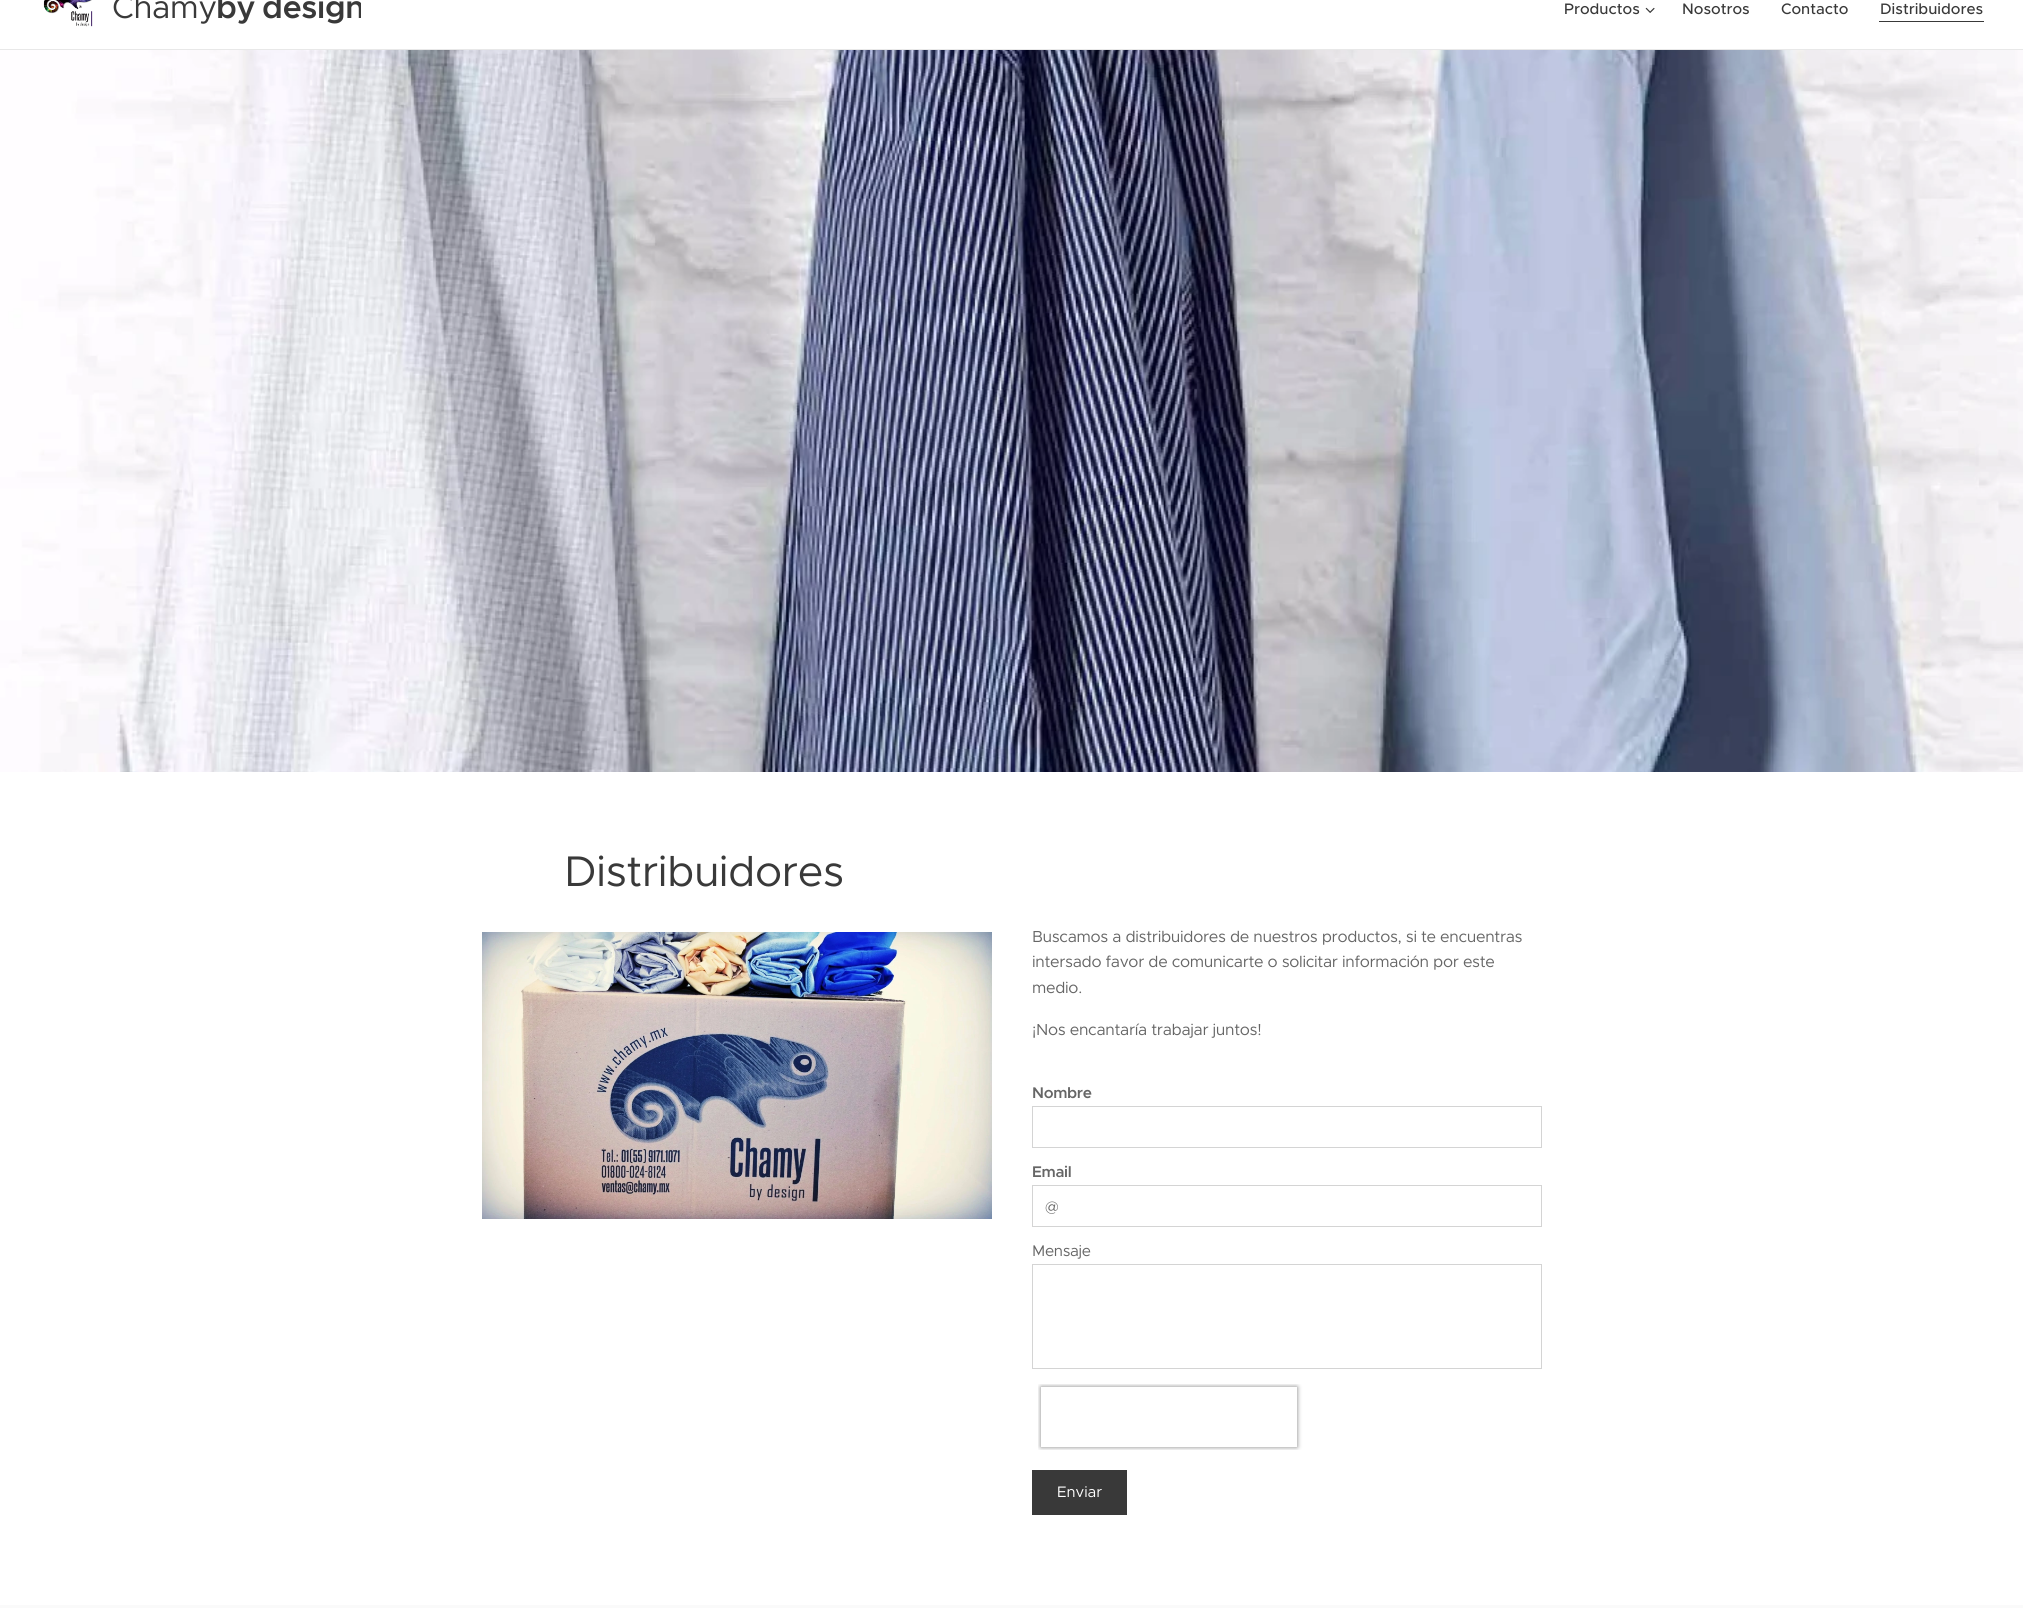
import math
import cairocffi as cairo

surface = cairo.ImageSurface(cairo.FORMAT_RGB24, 2023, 1608)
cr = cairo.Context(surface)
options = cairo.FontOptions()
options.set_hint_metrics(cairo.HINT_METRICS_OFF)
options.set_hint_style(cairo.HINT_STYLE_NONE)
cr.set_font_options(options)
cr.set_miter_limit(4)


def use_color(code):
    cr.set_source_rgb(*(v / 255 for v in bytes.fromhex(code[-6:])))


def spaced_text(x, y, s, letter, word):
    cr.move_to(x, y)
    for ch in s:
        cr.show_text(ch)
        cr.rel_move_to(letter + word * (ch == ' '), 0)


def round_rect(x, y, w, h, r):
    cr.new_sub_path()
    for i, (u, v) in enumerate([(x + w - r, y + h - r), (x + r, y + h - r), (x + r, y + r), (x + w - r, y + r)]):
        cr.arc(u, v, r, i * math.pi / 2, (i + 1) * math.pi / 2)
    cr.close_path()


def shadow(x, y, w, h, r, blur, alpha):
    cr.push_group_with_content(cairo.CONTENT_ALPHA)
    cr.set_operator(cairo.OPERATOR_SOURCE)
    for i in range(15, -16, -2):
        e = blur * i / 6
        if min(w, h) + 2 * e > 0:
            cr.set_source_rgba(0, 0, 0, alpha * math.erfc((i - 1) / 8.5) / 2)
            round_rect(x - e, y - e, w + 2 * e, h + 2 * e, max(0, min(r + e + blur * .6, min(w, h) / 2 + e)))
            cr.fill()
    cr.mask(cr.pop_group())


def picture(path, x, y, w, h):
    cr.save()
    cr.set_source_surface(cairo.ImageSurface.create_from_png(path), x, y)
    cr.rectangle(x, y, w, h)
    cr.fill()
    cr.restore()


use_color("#ffffff")
cr.paint()
picture("img1.png", 43, 0, 50, 27)
cr.select_font_face("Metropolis")
cr.set_font_size(32)
use_color("#393939")
spaced_text(112, 18, "Chamy", -0.32, 0)
cr.save()
cr.rectangle(105, 0, 256, 33)
cr.clip()
cr.select_font_face("Metropolis SemiBold")
spaced_text(216, 18, "by design", -0.32, -2)
cr.restore()
cr.select_font_face("Metropolis Medium")
cr.set_font_size(15.25)
cr.move_to(1564, 14)
cr.show_text("Productos")
picture("img2.png", 1645, 7, 10, 6)
cr.move_to(1682, 14)
cr.show_text("Nosotros")
cr.move_to(1781, 14)
cr.show_text("Contacto")
cr.move_to(1880, 14)
cr.show_text("Distribuidores")
cr.rectangle(1879, 21, 105, 1)
cr.fill()
use_color("#e8e8e8")
cr.rectangle(0, 49, 2023, 1)
cr.fill()
picture("img3.png", 0, 50, 2023, 722)
cr.select_font_face("Metropolis")
cr.set_font_size(43)
use_color("#393939")
spaced_text(564, 886, "Distribuidores", -0.5, 0)
picture("img4.png", 482, 932, 510, 287)
cr.set_font_size(16)
use_color("#666666")
spaced_text(1032, 942, "Buscamos a distribuidores de nuestros productos, si te encuentras", -0.32, 0)
spaced_text(1032, 967, "intersado favor de comunicarte o solicitar información por este", -0.32, 0)
spaced_text(1032, 993, "medio.", -0.32, 0)
spaced_text(1032, 1035, "¡Nos encantaría trabajar juntos!", -0.32, 0)
cr.select_font_face("Metropolis SemiBold")
cr.set_font_size(15.5)
spaced_text(1032, 1098, "Nombre", -0.32, 0)
cr.rectangle(1032.5, 1106.5, 509, 41)
use_color("#d4d4d4")
cr.set_line_width(1)
cr.stroke()
use_color("#666666")
spaced_text(1032, 1177, "Email", -0.32, 0)
cr.rectangle(1032.5, 1185.5, 509, 41)
use_color("#d4d4d4")
cr.stroke()
cr.select_font_face("Metropolis")
use_color("#666666")
cr.move_to(1045, 1212)
cr.show_text("@")
spaced_text(1032, 1256, "Mensaje", -0.32, 0)
cr.rectangle(1032.5, 1264.5, 509, 104)
use_color("#d4d4d4")
cr.stroke()
cr.save()
cr.rectangle(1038, 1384, 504, 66)
cr.clip()
cr.set_fill_rule(cairo.FILL_RULE_EVEN_ODD)
cr.new_path()
cr.move_to(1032, 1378)
cr.line_to(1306, 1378)
cr.line_to(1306, 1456)
cr.line_to(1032, 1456)
cr.close_path()
cr.move_to(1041, 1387)
cr.line_to(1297, 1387)
cr.line_to(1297, 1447)
cr.line_to(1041, 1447)
cr.close_path()
cr.clip()
use_color("#808080")
shadow(1041, 1387, 256, 60, 0, 2.5, 1)
cr.restore()
use_color("#393939")
cr.rectangle(1032, 1470, 95, 45)
cr.fill()
cr.set_font_size(15.25)
use_color("#ffffff")
cr.move_to(1057, 1497)
cr.show_text("Enviar")
use_color("#fafafa")
cr.rectangle(0, 1605, 2023, 3)
cr.fill()
surface.write_to_png("result.png")
